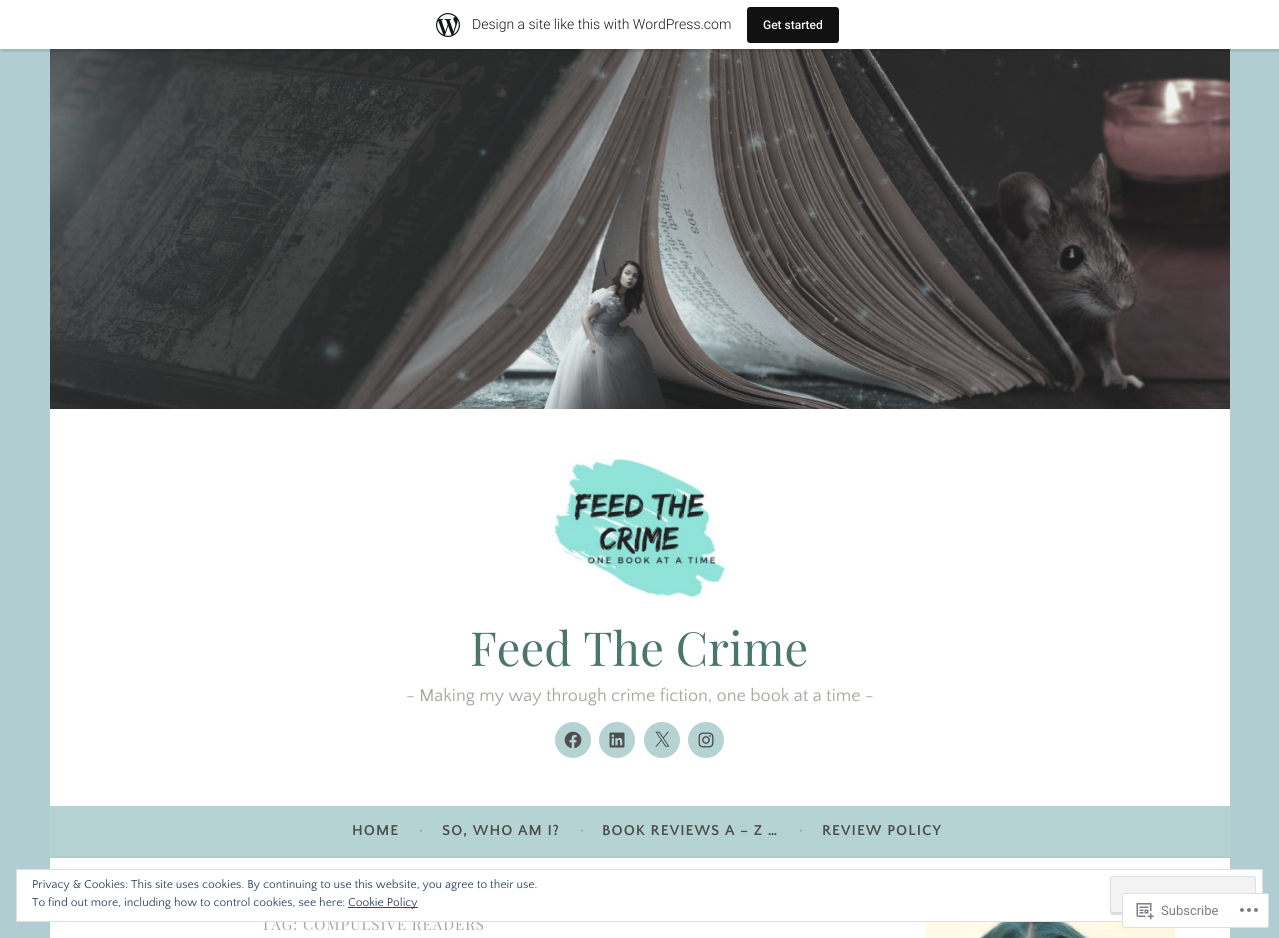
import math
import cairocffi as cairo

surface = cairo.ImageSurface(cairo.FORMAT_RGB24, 1279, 938)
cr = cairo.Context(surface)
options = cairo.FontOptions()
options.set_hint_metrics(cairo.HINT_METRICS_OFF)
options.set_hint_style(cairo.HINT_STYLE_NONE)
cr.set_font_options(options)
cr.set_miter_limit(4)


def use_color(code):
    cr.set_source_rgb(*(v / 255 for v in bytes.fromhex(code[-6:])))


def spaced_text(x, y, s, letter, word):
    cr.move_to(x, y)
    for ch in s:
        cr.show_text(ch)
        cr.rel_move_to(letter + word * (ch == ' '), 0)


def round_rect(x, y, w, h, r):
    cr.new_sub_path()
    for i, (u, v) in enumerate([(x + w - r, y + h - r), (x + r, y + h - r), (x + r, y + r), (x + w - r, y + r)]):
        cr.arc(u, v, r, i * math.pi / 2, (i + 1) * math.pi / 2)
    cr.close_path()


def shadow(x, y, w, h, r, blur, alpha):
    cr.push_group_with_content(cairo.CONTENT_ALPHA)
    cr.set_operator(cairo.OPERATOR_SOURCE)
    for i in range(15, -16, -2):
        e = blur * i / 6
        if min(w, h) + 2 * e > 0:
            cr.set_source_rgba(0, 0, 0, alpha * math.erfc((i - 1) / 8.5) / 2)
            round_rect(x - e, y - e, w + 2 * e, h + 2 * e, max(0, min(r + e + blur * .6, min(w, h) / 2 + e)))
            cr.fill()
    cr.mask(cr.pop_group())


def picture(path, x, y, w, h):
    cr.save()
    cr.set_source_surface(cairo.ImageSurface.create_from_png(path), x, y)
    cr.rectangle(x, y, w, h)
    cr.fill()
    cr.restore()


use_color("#b0ced2")
cr.paint()
picture("img2.png", 50, 49, 1180, 360)
use_color("#000000")
shadow(0, 1, 1279, 49, 0, 1, 0.05)
cr.set_source_rgba(0, 0, 0, 0.08)
cr.new_path()
cr.move_to(1, 49)
cr.line_to(1, 52)
cr.line_to(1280, 52)
cr.line_to(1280, 3)
cr.line_to(1279, 3)
cr.line_to(1279, 49)
cr.close_path()
cr.fill()
use_color("#ffffff")
cr.rectangle(0, 0, 1279, 49)
cr.fill()
picture("img1.png", 436, 13, 24, 24)
cr.select_font_face("Roboto Light")
cr.set_font_size(14)
use_color("#171717")
cr.move_to(472, 29)
cr.show_text("Design a site like this with WordPress.com")
use_color("#111111")
round_rect(747, 7, 92, 36, 3)
cr.fill()
cr.select_font_face("Roboto Medium")
cr.set_font_size(12)
use_color("#f6f7f7")
cr.move_to(763, 29)
cr.show_text("Get started")
use_color("#ffffff")
cr.rectangle(50, 409, 1180, 397)
cr.fill()
picture("img3.png", 552, 458, 175, 140)
cr.select_font_face("Playfair Display")
cr.set_font_size(47)
use_color("#4b766b")
cr.move_to(470, 666)
cr.show_text("Feed The Crime")
cr.select_font_face("Quattrocento Sans")
cr.set_font_size(18)
use_color("#a8a6a1")
cr.move_to(406, 701)
cr.show_text("- Making my way through crime fiction, one book at a time -")
use_color("#b5d3d2")
cr.new_path()
cr.arc(573, 740, 18, 0, 2 * math.pi)
cr.fill()
picture("img4.png", 564, 731, 18, 18)
cr.arc(617, 740, 18, 0, 2 * math.pi)
cr.fill()
picture("img5.png", 609, 732, 16, 16)
cr.arc(662, 740, 18, 0, 2 * math.pi)
cr.fill()
picture("img6.png", 655, 731, 15, 16)
cr.arc(706, 740, 18, 0, 2 * math.pi)
cr.fill()
picture("img7.png", 698, 732, 16, 16)
cr.rectangle(50, 806, 1180, 50)
cr.fill()
use_color("#b0cdcc")
cr.rectangle(50, 856, 1180, 2)
cr.fill()
cr.select_font_face("Quattrocento Sans", cairo.FONT_SLANT_NORMAL, cairo.FONT_WEIGHT_BOLD)
cr.set_font_size(15)
use_color("#4f4f4f")
spaced_text(352, 835, "HOME", 1, 0)
cr.select_font_face("Quattrocento Sans")
cr.set_font_size(18)
use_color("#9ab3b3")
cr.move_to(418, 835)
cr.show_text("•")
cr.select_font_face("Quattrocento Sans", cairo.FONT_SLANT_NORMAL, cairo.FONT_WEIGHT_BOLD)
cr.set_font_size(15)
use_color("#4f4f4f")
spaced_text(442, 835, "SO, WHO AM I?", 1, 0)
cr.select_font_face("Quattrocento Sans")
cr.set_font_size(18)
use_color("#9ab3b3")
cr.move_to(579, 835)
cr.show_text("•")
cr.select_font_face("Quattrocento Sans", cairo.FONT_SLANT_NORMAL, cairo.FONT_WEIGHT_BOLD)
cr.set_font_size(15)
use_color("#4f4f4f")
spaced_text(602, 835, "BOOK REVIEWS A – Z …", 1, 0)
cr.select_font_face("Quattrocento Sans")
cr.set_font_size(18)
use_color("#9ab3b3")
cr.move_to(798, 835)
cr.show_text("•")
cr.select_font_face("Quattrocento Sans", cairo.FONT_SLANT_NORMAL, cairo.FONT_WEIGHT_BOLD)
cr.set_font_size(15)
use_color("#4f4f4f")
spaced_text(822, 835, "REVIEW POLICY", 1, 0)
use_color("#ffffff")
cr.rectangle(50, 858, 1180, 80)
cr.fill()
cr.select_font_face("Playfair Display")
use_color("#a8a6a1")
spaced_text(261, 930, "TAG: COMPULSIVE READERS", 1, 0)
picture("img8.png", 925, 922, 250, 16)
use_color("#ffffff")
cr.rectangle(16.5, 869.5, 1246, 52)
cr.fill_preserve()
use_color("#dedede")
cr.set_line_width(1)
cr.stroke()
cr.select_font_face("Quattrocento Sans")
cr.set_font_size(12)
use_color("#2e4467")
cr.move_to(32, 888)
cr.show_text("Privacy & Cookies: This site uses cookies. By continuing to use this website, you agree to their use.")
use_color("#f3f3f3")
round_rect(1110, 876, 146, 39, 3)
cr.fill()
use_color("#dbdbdb")
cr.new_path()
cr.move_to(1111, 910)
cr.curve_to(1111, 912, 1111, 914, 1113, 914)
cr.line_to(1254, 914)
cr.curve_to(1255, 913, 1255, 911, 1255, 910)
cr.curve_to(1255, 911, 1254, 912, 1253, 912)
cr.line_to(1113, 912)
cr.curve_to(1112, 912, 1111, 911, 1111, 910)
cr.close_path()
cr.fill()
round_rect(1110.5, 876.5, 145, 38, 2.5)
use_color("#dedede")
cr.stroke()
use_color("#2e4467")
cr.move_to(32, 906)
cr.show_text("To find out more, including how to control cookies, see here:")
cr.rectangle(348, 907, 70, 1)
cr.fill()
cr.move_to(348, 906)
cr.show_text("Cookie Policy")
cr.set_source_rgba(1, 1, 1, 0.98)
round_rect(1122, 893, 147, 35, 3)
cr.fill()
round_rect(1122.5, 893.5, 146, 34, 2.5)
cr.set_source_rgba(0.863, 0.863, 0.871, 0.98)
cr.stroke()
picture("img9.png", 1136, 903, 18, 17)
cr.select_font_face("Roboto")
cr.set_font_size(13)
use_color("#7b7f84")
cr.move_to(1161, 915)
cr.show_text("Subscribe")
picture("img10.png", 1240, 908, 18, 4)
surface.write_to_png("result.png")
